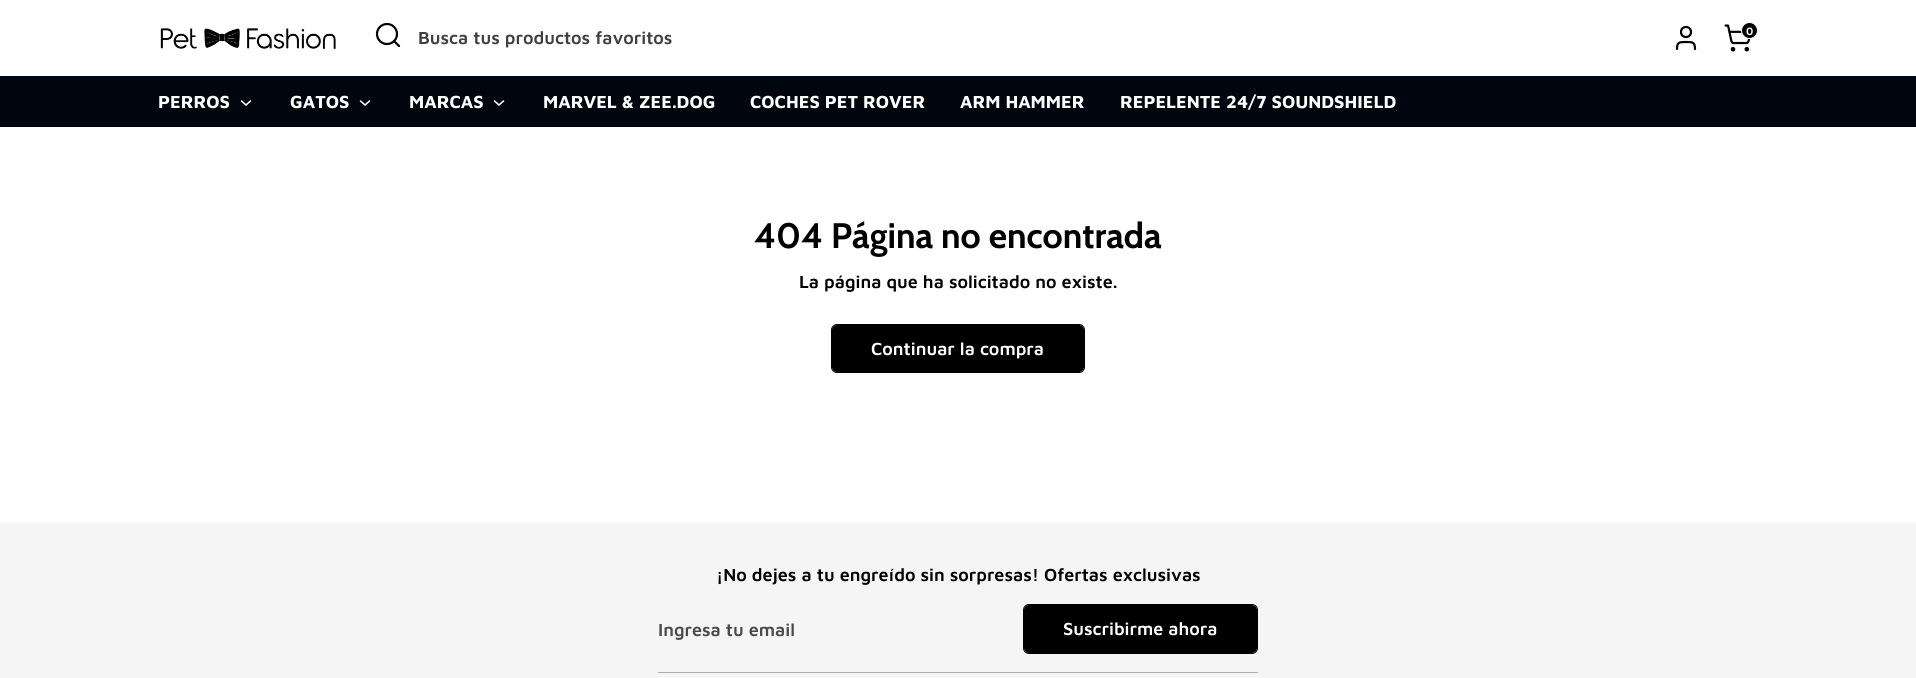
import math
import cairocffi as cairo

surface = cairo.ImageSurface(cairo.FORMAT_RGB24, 1916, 678)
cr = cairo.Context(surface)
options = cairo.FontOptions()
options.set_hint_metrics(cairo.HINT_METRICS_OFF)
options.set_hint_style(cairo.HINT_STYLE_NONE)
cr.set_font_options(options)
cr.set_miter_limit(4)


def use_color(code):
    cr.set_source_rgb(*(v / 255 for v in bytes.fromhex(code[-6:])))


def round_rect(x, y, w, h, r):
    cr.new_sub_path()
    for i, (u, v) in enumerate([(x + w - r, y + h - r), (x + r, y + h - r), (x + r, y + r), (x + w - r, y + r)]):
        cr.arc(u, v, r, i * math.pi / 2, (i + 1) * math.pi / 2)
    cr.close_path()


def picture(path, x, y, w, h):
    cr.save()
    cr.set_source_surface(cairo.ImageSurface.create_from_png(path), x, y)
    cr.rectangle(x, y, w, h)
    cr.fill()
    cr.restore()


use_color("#ffffff")
cr.paint()
picture("img1.png", 160, 28, 176, 21)
cr.arc(387, 34, 10, 0, 2 * math.pi)
use_color("#000000")
cr.set_line_width(2.2)
cr.stroke()
cr.new_path()
cr.move_to(399, 46)
cr.line_to(394, 41)
cr.set_line_cap(cairo.LINE_CAP_ROUND)
cr.set_line_join(cairo.LINE_JOIN_ROUND)
cr.stroke()
cr.select_font_face("Maven Pro SemiBold")
cr.set_font_size(18)
use_color("#404040")
cr.move_to(418, 44)
cr.show_text("Busca tus productos favoritos")
cr.new_path()
cr.move_to(1695, 49)
cr.curve_to(1695, 42, 1692.5, 42, 1686, 42)
cr.curve_to(1679.5, 42, 1677, 42, 1677, 49)
use_color("#000000")
cr.stroke()
cr.arc(1686, 32, 5, 0, 2 * math.pi)
cr.set_line_cap(cairo.LINE_CAP_BUTT)
cr.set_line_join(cairo.LINE_JOIN_MITER)
cr.stroke()
picture("img2.png", 1724, 24, 27, 28)
cr.arc(1749.5, 30.5, 8, 0, 2 * math.pi)
cr.fill_preserve()
use_color("#ffffff")
cr.set_line_width(1)
cr.stroke()
cr.set_font_size(11)
cr.move_to(1746, 35)
cr.show_text("0")
use_color("#00060d")
cr.rectangle(0, 76, 1916, 51)
cr.fill()
cr.select_font_face("Maven Pro", cairo.FONT_SLANT_NORMAL, cairo.FONT_WEIGHT_BOLD)
cr.set_font_size(18)
use_color("#ffffff")
cr.move_to(158, 108)
cr.show_text("PERROS")
cr.new_path()
cr.move_to(241.5, 101)
cr.line_to(246, 105)
cr.line_to(250.5, 101)
cr.set_line_width(1.5)
cr.set_line_cap(cairo.LINE_CAP_ROUND)
cr.stroke()
cr.move_to(290, 108)
cr.show_text("GATOS")
cr.new_path()
cr.move_to(360.5, 101)
cr.line_to(365, 105)
cr.line_to(369.5, 101)
cr.stroke()
cr.move_to(409, 108)
cr.show_text("MARCAS")
cr.new_path()
cr.move_to(494.5, 101)
cr.line_to(499, 105)
cr.line_to(503.5, 101)
cr.stroke()
cr.move_to(543, 108)
cr.show_text("MARVEL & ZEE.DOG")
cr.move_to(750, 108)
cr.show_text("COCHES PET ROVER")
cr.move_to(960, 108)
cr.show_text("ARM HAMMER")
cr.move_to(1120, 108)
cr.show_text("REPELENTE 24/7 SOUNDSHIELD")
cr.select_font_face("Cabin", cairo.FONT_SLANT_NORMAL, cairo.FONT_WEIGHT_BOLD)
cr.set_font_size(35.4)
use_color("#000000")
cr.move_to(754, 248)
cr.show_text("404 Página no encontrada")
cr.select_font_face("Maven Pro SemiBold")
cr.set_font_size(18)
cr.move_to(799, 288)
cr.show_text("La página que ha solicitado no existe.")
round_rect(831.5, 324.5, 253, 48, 5.5)
cr.set_line_width(1)
cr.set_line_cap(cairo.LINE_CAP_BUTT)
cr.stroke()
round_rect(832, 325, 252, 47, 5)
cr.fill()
use_color("#ffffff")
cr.move_to(871, 355)
cr.show_text("Continuar la compra")
use_color("#f5f5f5")
cr.rectangle(0, 523, 1916, 155)
cr.fill()
use_color("#000000")
cr.move_to(716, 581)
cr.show_text("¡No dejes a tu engreído sin sorpresas! Ofertas exclusivas")
use_color("#acacac")
cr.rectangle(658, 672, 600, 1)
cr.fill()
use_color("#4a4a4a")
cr.move_to(658, 636)
cr.show_text("Ingresa tu email")
round_rect(1023.5, 604.5, 234, 49, 5.5)
use_color("#000000")
cr.stroke()
round_rect(1024, 605, 233, 48, 5)
cr.fill()
use_color("#ffffff")
cr.move_to(1063, 635)
cr.show_text("Suscribirme ahora")
surface.write_to_png("result.png")
